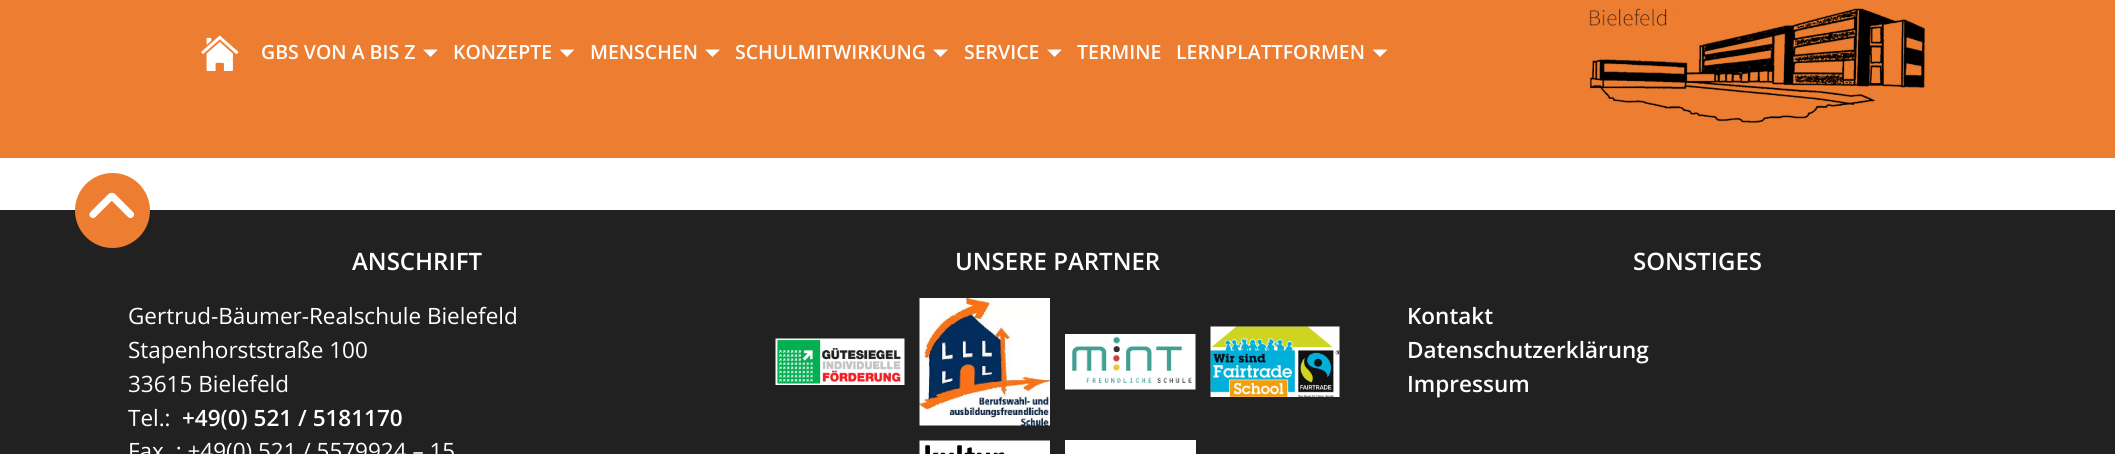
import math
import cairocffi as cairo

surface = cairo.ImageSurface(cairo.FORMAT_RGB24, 2115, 454)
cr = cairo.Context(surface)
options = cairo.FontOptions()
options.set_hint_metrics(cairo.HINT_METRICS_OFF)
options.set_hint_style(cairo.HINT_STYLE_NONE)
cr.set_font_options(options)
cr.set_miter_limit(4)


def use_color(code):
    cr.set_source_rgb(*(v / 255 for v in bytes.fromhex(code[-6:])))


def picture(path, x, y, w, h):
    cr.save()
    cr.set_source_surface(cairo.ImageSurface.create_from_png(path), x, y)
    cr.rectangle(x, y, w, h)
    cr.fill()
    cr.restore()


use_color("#ffffff")
cr.paint()
use_color("#ed7d31")
cr.rectangle(0, 0, 2115, 158)
cr.fill()
picture("img1.png", 201, 35, 38, 36)
cr.select_font_face("Open Sans SemiBold")
cr.set_font_size(19.5)
use_color("#ffffff")
cr.move_to(261, 59)
cr.show_text("GBS VON A BIS Z")
cr.new_path()
cr.move_to(423, 49.5)
cr.line_to(438, 49.5)
cr.line_to(430.5, 57)
cr.close_path()
cr.fill()
cr.move_to(453, 59)
cr.show_text("KONZEPTE")
cr.new_path()
cr.move_to(559.5, 49.5)
cr.line_to(574.5, 49.5)
cr.line_to(567, 57)
cr.close_path()
cr.fill()
cr.move_to(590, 59)
cr.show_text("MENSCHEN")
cr.new_path()
cr.move_to(705, 49.5)
cr.line_to(720, 49.5)
cr.line_to(712.5, 57)
cr.close_path()
cr.fill()
cr.move_to(735, 59)
cr.show_text("SCHULMITWIRKUNG")
cr.new_path()
cr.move_to(933, 49.5)
cr.line_to(948, 49.5)
cr.line_to(940.5, 57)
cr.close_path()
cr.fill()
cr.move_to(964, 59)
cr.show_text("SERVICE")
cr.new_path()
cr.move_to(1047, 49.5)
cr.line_to(1062, 49.5)
cr.line_to(1054.5, 57)
cr.close_path()
cr.fill()
cr.move_to(1077, 59)
cr.show_text("TERMINE")
cr.move_to(1176, 59)
cr.show_text("LERNPLATTFORMEN")
cr.new_path()
cr.move_to(1372.5, 49.5)
cr.line_to(1387.5, 49.5)
cr.line_to(1380, 57)
cr.close_path()
cr.fill()
picture("img2.png", 1589, 8, 336, 115)
use_color("#212121")
cr.rectangle(0, 210, 2115, 244)
cr.fill()
use_color("#ed7d31")
cr.arc(112.5, 210.5, 37.5, 0, 2 * math.pi)
cr.fill()
use_color("#ffffff")
cr.new_path()
cr.move_to(113.5, 194)
cr.curve_to(115, 195.5, 115, 197.5, 113.5, 199)
cr.line_to(95.5, 217)
cr.curve_to(94, 218.5, 92, 218.5, 90.5, 217)
cr.curve_to(89, 215.5, 89, 213.5, 90.5, 212)
cr.line_to(108.5, 194)
cr.curve_to(110, 192.5, 112, 192.5, 113.5, 194)
cr.close_path()
cr.fill()
cr.new_path()
cr.move_to(110, 194)
cr.curve_to(111.5, 192.5, 113.5, 192.5, 115, 194)
cr.line_to(133, 212)
cr.curve_to(134.5, 213.5, 134.5, 215.5, 133, 217)
cr.curve_to(131.5, 218.5, 129.5, 218.5, 128, 217)
cr.line_to(110, 199)
cr.curve_to(108.5, 197.5, 108.5, 195.5, 110, 194)
cr.close_path()
cr.fill()
cr.set_font_size(24)
cr.move_to(352, 270)
cr.show_text("ANSCHRIFT")
cr.select_font_face("Open Sans")
cr.set_font_size(22.5)
cr.move_to(128, 324)
cr.show_text("Gertrud-Bäumer-Realschule Bielefeld")
cr.move_to(128, 358)
cr.show_text("Stapenhorststraße 100")
cr.move_to(128, 392)
cr.show_text("33615 Bielefeld")
cr.move_to(128, 426)
cr.show_text("Tel.:")
cr.select_font_face("Open Sans SemiBold")
cr.move_to(182, 426)
cr.show_text("+49(0) 521 / 5181170")
cr.select_font_face("Open Sans")
cr.move_to(128, 459)
cr.show_text("Fax .: +49(0) 521 / 5579924 – 15")
cr.select_font_face("Open Sans SemiBold")
cr.set_font_size(24)
cr.move_to(955, 270)
cr.show_text("UNSERE PARTNER")
picture("img3.png", 775, 338, 130, 47)
picture("img4.png", 919, 298, 131, 128)
picture("img5.png", 1065, 334, 131, 56)
picture("img6.png", 1210, 326, 130, 71)
picture("img7.png", 919, 440, 131, 14)
cr.rectangle(1065, 440, 131, 14)
cr.fill()
cr.move_to(1633, 270)
cr.show_text("SONSTIGES")
cr.set_font_size(22.5)
cr.move_to(1407, 324)
cr.show_text("Kontakt")
cr.move_to(1407, 358)
cr.show_text("Datenschutzerklärung")
cr.move_to(1407, 392)
cr.show_text("Impressum")
surface.write_to_png("result.png")
